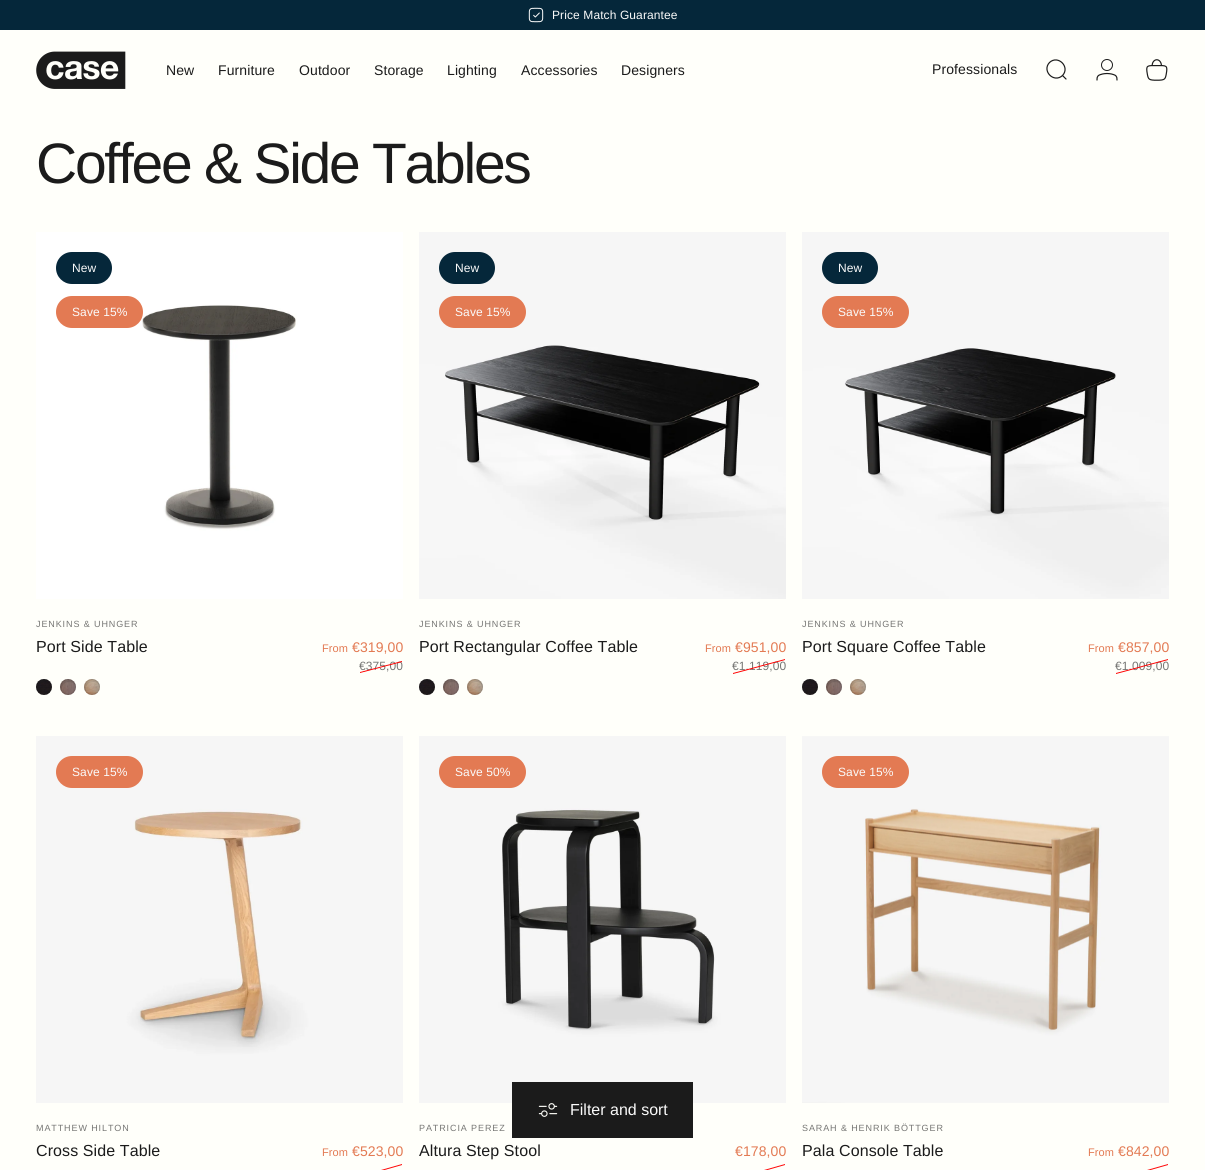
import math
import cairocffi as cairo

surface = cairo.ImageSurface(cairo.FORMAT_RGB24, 1205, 1170)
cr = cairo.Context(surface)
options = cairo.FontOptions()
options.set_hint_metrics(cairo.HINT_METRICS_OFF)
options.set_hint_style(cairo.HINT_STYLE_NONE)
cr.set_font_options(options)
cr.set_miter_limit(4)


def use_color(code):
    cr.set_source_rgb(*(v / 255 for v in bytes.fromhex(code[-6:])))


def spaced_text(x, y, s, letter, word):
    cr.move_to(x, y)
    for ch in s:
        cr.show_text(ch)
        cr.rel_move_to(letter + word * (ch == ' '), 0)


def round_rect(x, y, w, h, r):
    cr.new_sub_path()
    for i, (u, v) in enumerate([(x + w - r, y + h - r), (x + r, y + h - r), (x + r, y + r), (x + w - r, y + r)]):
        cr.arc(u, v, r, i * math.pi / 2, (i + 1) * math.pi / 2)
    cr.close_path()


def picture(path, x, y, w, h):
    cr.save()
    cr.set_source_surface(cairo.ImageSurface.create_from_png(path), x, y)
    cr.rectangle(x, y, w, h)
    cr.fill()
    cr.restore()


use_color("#fffffa")
cr.paint()
use_color("#05273a")
cr.rectangle(0, 0, 1205, 30)
cr.fill()
picture("img1.png", 528, 7, 16, 16)
cr.select_font_face("Liberation Sans")
cr.set_font_size(12)
use_color("#fafafa")
spaced_text(552, 19, "Price Match Guarantee", 0.1, 0)
picture("img2.png", 36, 51, 90, 38)
cr.set_font_size(14)
use_color("#1b1b1b")
spaced_text(166, 75, "New", 0.1, 0)
spaced_text(218, 75, "Furniture", 0.1, 0)
spaced_text(299, 75, "Outdoor", 0.1, 0)
spaced_text(374, 75, "Storage", 0.1, 0)
spaced_text(447, 75, "Lighting", 0.1, 0)
spaced_text(521, 75, "Accessories", 0.1, 0)
spaced_text(621, 75, "Designers", 0.1, 0)
spaced_text(932, 74, "Professionals", 0.1, 0)
cr.new_path()
cr.move_to(1066, 79)
cr.line_to(1062.5, 75.5)
cr.move_to(1062.5, 75.5)
cr.curve_to(1070.5, 67, 1058, 54.5, 1049.5, 62.5)
cr.curve_to(1041.5, 71, 1054, 83.5, 1062.5, 75.5)
cr.close_path()
cr.set_line_width(1.2)
cr.set_line_cap(cairo.LINE_CAP_ROUND)
cr.stroke()
picture("img3.png", 1096, 59, 22, 22)
picture("img4.png", 1146, 59, 22, 22)
cr.set_font_size(57)
spaced_text(36, 183, "Coffee & Side Tables", -2.25, 0)
picture("img5.png", 36, 232, 367, 367)
use_color("#05273a")
round_rect(56, 252, 56, 32, 16)
cr.fill()
cr.set_font_size(12)
use_color("#fafafa")
spaced_text(72, 272, "New", 0.1, 0)
use_color("#e37a53")
round_rect(56, 296, 87, 32, 16)
cr.fill()
use_color("#fafafa")
spaced_text(72, 316, "Save 15%", 0.1, 0)
cr.set_font_size(9)
use_color("#767674")
spaced_text(36, 627, "JENKINS & UHNGER", 0.9, 0)
cr.set_font_size(16)
use_color("#1b1b1b")
spaced_text(36, 652, "Port Side Table", 0.1, 0)
cr.set_font_size(11)
use_color("#e37a53")
spaced_text(322, 652, "From", 0.1, 0)
cr.set_font_size(14)
spaced_text(352, 652, "€319,00", 0.1, 0)
cr.set_font_size(12)
use_color("#767674")
spaced_text(359, 670, "€375,00", 0.1, 0)
use_color("#ff0000")
cr.new_path()
cr.move_to(360, 672)
cr.line_to(402, 661)
cr.line_to(402, 662)
cr.line_to(360, 673)
cr.close_path()
cr.fill()
picture("img6.png", 36, 679, 16, 16)
cr.set_source_rgba(0.106, 0.106, 0.106, 0.11)
cr.new_path()
cr.move_to(45, 682)
cr.curve_to(48.5, 682, 51, 684, 52, 687)
cr.curve_to(52, 685, 51, 683, 49.5, 681.5)
cr.curve_to(42.5, 674, 32, 684.5, 37.5, 692)
cr.curve_to(37, 687.5, 39, 682, 45, 682)
cr.close_path()
cr.fill()
cr.arc(44, 687, 7.5, 0, 2 * math.pi)
cr.set_line_width(1)
cr.set_line_cap(cairo.LINE_CAP_BUTT)
cr.stroke()
picture("img7.png", 60, 679, 16, 16)
cr.new_path()
cr.move_to(69, 682)
cr.curve_to(72.5, 682, 75, 684, 76, 687)
cr.curve_to(76, 685, 75, 683, 73.5, 681.5)
cr.curve_to(66.5, 674, 56, 684.5, 61.5, 692)
cr.curve_to(61, 687.5, 63, 682, 69, 682)
cr.close_path()
cr.fill()
cr.arc(68, 687, 7.5, 0, 2 * math.pi)
cr.stroke()
picture("img8.png", 84, 679, 16, 16)
cr.new_path()
cr.move_to(93, 682)
cr.curve_to(96.5, 682, 99, 684, 100, 687)
cr.curve_to(100, 685, 99, 683, 97.5, 681.5)
cr.curve_to(90.5, 674, 80, 684.5, 85.5, 692)
cr.curve_to(85, 687.5, 87, 682, 93, 682)
cr.close_path()
cr.fill()
cr.arc(92, 687, 7.5, 0, 2 * math.pi)
cr.stroke()
picture("img9.png", 419, 232, 367, 367)
use_color("#05273a")
round_rect(439, 252, 56, 32, 16)
cr.fill()
use_color("#fafafa")
spaced_text(455, 272, "New", 0.1, 0)
use_color("#e37a53")
round_rect(439, 296, 87, 32, 16)
cr.fill()
use_color("#fafafa")
spaced_text(455, 316, "Save 15%", 0.1, 0)
cr.set_font_size(9)
use_color("#767674")
spaced_text(419, 627, "JENKINS & UHNGER", 0.9, 0)
cr.set_font_size(16)
use_color("#1b1b1b")
spaced_text(419, 652, "Port Rectangular Coffee Table", 0.1, 0)
cr.set_font_size(11)
use_color("#e37a53")
spaced_text(705, 652, "From", 0.1, 0)
cr.set_font_size(14)
spaced_text(735, 652, "€951,00", 0.1, 0)
cr.set_font_size(12)
use_color("#767674")
spaced_text(732, 670, "€1.119,00", 0.1, 0)
use_color("#ff0000")
cr.new_path()
cr.move_to(733, 673)
cr.line_to(785, 659)
cr.line_to(785, 660)
cr.line_to(733, 674)
cr.close_path()
cr.fill()
picture("img6.png", 419, 679, 16, 16)
cr.set_source_rgba(0.106, 0.106, 0.106, 0.11)
cr.new_path()
cr.move_to(428, 682)
cr.curve_to(431.5, 682, 434, 684, 435, 687)
cr.curve_to(435, 685, 434, 683, 432.5, 681.5)
cr.curve_to(425.5, 674, 415, 684.5, 420.5, 692)
cr.curve_to(420, 687.5, 422, 682, 428, 682)
cr.close_path()
cr.fill()
cr.arc(427, 687, 7.5, 0, 2 * math.pi)
cr.stroke()
picture("img7.png", 443, 679, 16, 16)
cr.new_path()
cr.move_to(452, 682)
cr.curve_to(455.5, 682, 458, 684, 459, 687)
cr.curve_to(459, 685, 458, 683, 456.5, 681.5)
cr.curve_to(449.5, 674, 439, 684.5, 444.5, 692)
cr.curve_to(444, 687.5, 446, 682, 452, 682)
cr.close_path()
cr.fill()
cr.arc(451, 687, 7.5, 0, 2 * math.pi)
cr.stroke()
picture("img8.png", 467, 679, 16, 16)
cr.new_path()
cr.move_to(476, 682)
cr.curve_to(479.5, 682, 482, 684, 483, 687)
cr.curve_to(483, 685, 482, 683, 480.5, 681.5)
cr.curve_to(473.5, 674, 463, 684.5, 468.5, 692)
cr.curve_to(468, 687.5, 470, 682, 476, 682)
cr.close_path()
cr.fill()
cr.arc(475, 687, 7.5, 0, 2 * math.pi)
cr.stroke()
picture("img10.png", 802, 232, 367, 367)
use_color("#05273a")
round_rect(822, 252, 56, 32, 16)
cr.fill()
use_color("#fafafa")
spaced_text(838, 272, "New", 0.1, 0)
use_color("#e37a53")
round_rect(822, 296, 87, 32, 16)
cr.fill()
use_color("#fafafa")
spaced_text(838, 316, "Save 15%", 0.1, 0)
cr.set_font_size(9)
use_color("#767674")
spaced_text(802, 627, "JENKINS & UHNGER", 0.9, 0)
cr.set_font_size(16)
use_color("#1b1b1b")
spaced_text(802, 652, "Port Square Coffee Table", 0.1, 0)
cr.set_font_size(11)
use_color("#e37a53")
spaced_text(1088, 652, "From", 0.1, 0)
cr.set_font_size(14)
spaced_text(1118, 652, "€857,00", 0.1, 0)
cr.set_font_size(12)
use_color("#767674")
spaced_text(1115, 670, "€1.009,00", 0.1, 0)
use_color("#ff0000")
cr.new_path()
cr.move_to(1116, 673)
cr.line_to(1168, 659)
cr.line_to(1168, 660)
cr.line_to(1116, 674)
cr.close_path()
cr.fill()
picture("img6.png", 802, 679, 16, 16)
cr.set_source_rgba(0.106, 0.106, 0.106, 0.11)
cr.new_path()
cr.move_to(811, 682)
cr.curve_to(814.5, 682, 817, 684, 818, 687)
cr.curve_to(818, 685, 817, 683, 815.5, 681.5)
cr.curve_to(808.5, 674, 798, 684.5, 803.5, 692)
cr.curve_to(803, 687.5, 805, 682, 811, 682)
cr.close_path()
cr.fill()
cr.arc(810, 687, 7.5, 0, 2 * math.pi)
cr.stroke()
picture("img7.png", 826, 679, 16, 16)
cr.new_path()
cr.move_to(835, 682)
cr.curve_to(838.5, 682, 841, 684, 842, 687)
cr.curve_to(842, 685, 841, 683, 839.5, 681.5)
cr.curve_to(832.5, 674, 822, 684.5, 827.5, 692)
cr.curve_to(827, 687.5, 829, 682, 835, 682)
cr.close_path()
cr.fill()
cr.arc(834, 687, 7.5, 0, 2 * math.pi)
cr.stroke()
picture("img8.png", 850, 679, 16, 16)
cr.new_path()
cr.move_to(859, 682)
cr.curve_to(862.5, 682, 865, 684, 866, 687)
cr.curve_to(866, 685, 865, 683, 863.5, 681.5)
cr.curve_to(856.5, 674, 846, 684.5, 851.5, 692)
cr.curve_to(851, 687.5, 853, 682, 859, 682)
cr.close_path()
cr.fill()
cr.arc(858, 687, 7.5, 0, 2 * math.pi)
cr.stroke()
picture("img11.png", 36, 736, 367, 367)
use_color("#e37a53")
round_rect(56, 756, 87, 32, 16)
cr.fill()
use_color("#fafafa")
spaced_text(72, 776, "Save 15%", 0.1, 0)
cr.set_font_size(9)
use_color("#767674")
spaced_text(36, 1131, "MATTHEW HILTON", 0.9, 0)
cr.set_font_size(16)
use_color("#1b1b1b")
spaced_text(36, 1156, "Cross Side Table", 0.1, 0)
cr.set_font_size(11)
use_color("#e37a53")
spaced_text(322, 1156, "From", 0.1, 0)
cr.set_font_size(14)
spaced_text(352, 1156, "€523,00", 0.1, 0)
use_color("#ff0000")
cr.new_path()
cr.move_to(360, 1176)
cr.line_to(402, 1164)
cr.line_to(402, 1165)
cr.line_to(360, 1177)
cr.close_path()
cr.fill()
picture("img12.png", 419, 736, 367, 367)
use_color("#e37a53")
round_rect(439, 756, 87, 32, 16)
cr.fill()
cr.set_font_size(12)
use_color("#fafafa")
spaced_text(455, 776, "Save 50%", 0.1, 0)
cr.set_font_size(9)
use_color("#767674")
spaced_text(419, 1131, "PATRICIA PEREZ", 0.9, 0)
cr.set_font_size(16)
use_color("#1b1b1b")
spaced_text(419, 1156, "Altura Step Stool", 0.1, 0)
cr.set_font_size(14)
use_color("#e37a53")
spaced_text(735, 1156, "€178,00", 0.1, 0)
use_color("#ff0000")
cr.new_path()
cr.move_to(743, 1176)
cr.line_to(785, 1164)
cr.line_to(785, 1165)
cr.line_to(743, 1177)
cr.close_path()
cr.fill()
picture("img13.png", 802, 736, 367, 367)
use_color("#e37a53")
round_rect(822, 756, 87, 32, 16)
cr.fill()
cr.set_font_size(12)
use_color("#fafafa")
spaced_text(838, 776, "Save 15%", 0.1, 0)
cr.set_font_size(9)
use_color("#767674")
spaced_text(802, 1131, "SARAH & HENRIK BÖTTGER", 0.9, 0)
cr.set_font_size(16)
use_color("#1b1b1b")
spaced_text(802, 1156, "Pala Console Table", 0.1, 0)
cr.set_font_size(11)
use_color("#e37a53")
spaced_text(1088, 1156, "From", 0.1, 0)
cr.set_font_size(14)
spaced_text(1118, 1156, "€842,00", 0.1, 0)
use_color("#ff0000")
cr.new_path()
cr.move_to(1126, 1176)
cr.line_to(1168, 1164)
cr.line_to(1168, 1165)
cr.line_to(1126, 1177)
cr.close_path()
cr.fill()
use_color("#1b1b1b")
cr.rectangle(512, 1082, 181, 56)
cr.fill()
picture("img14.png", 538, 1103, 20, 14)
cr.set_font_size(16)
use_color("#fafafa")
cr.move_to(570, 1115)
cr.show_text("Filter and sort")
surface.write_to_png("result.png")
